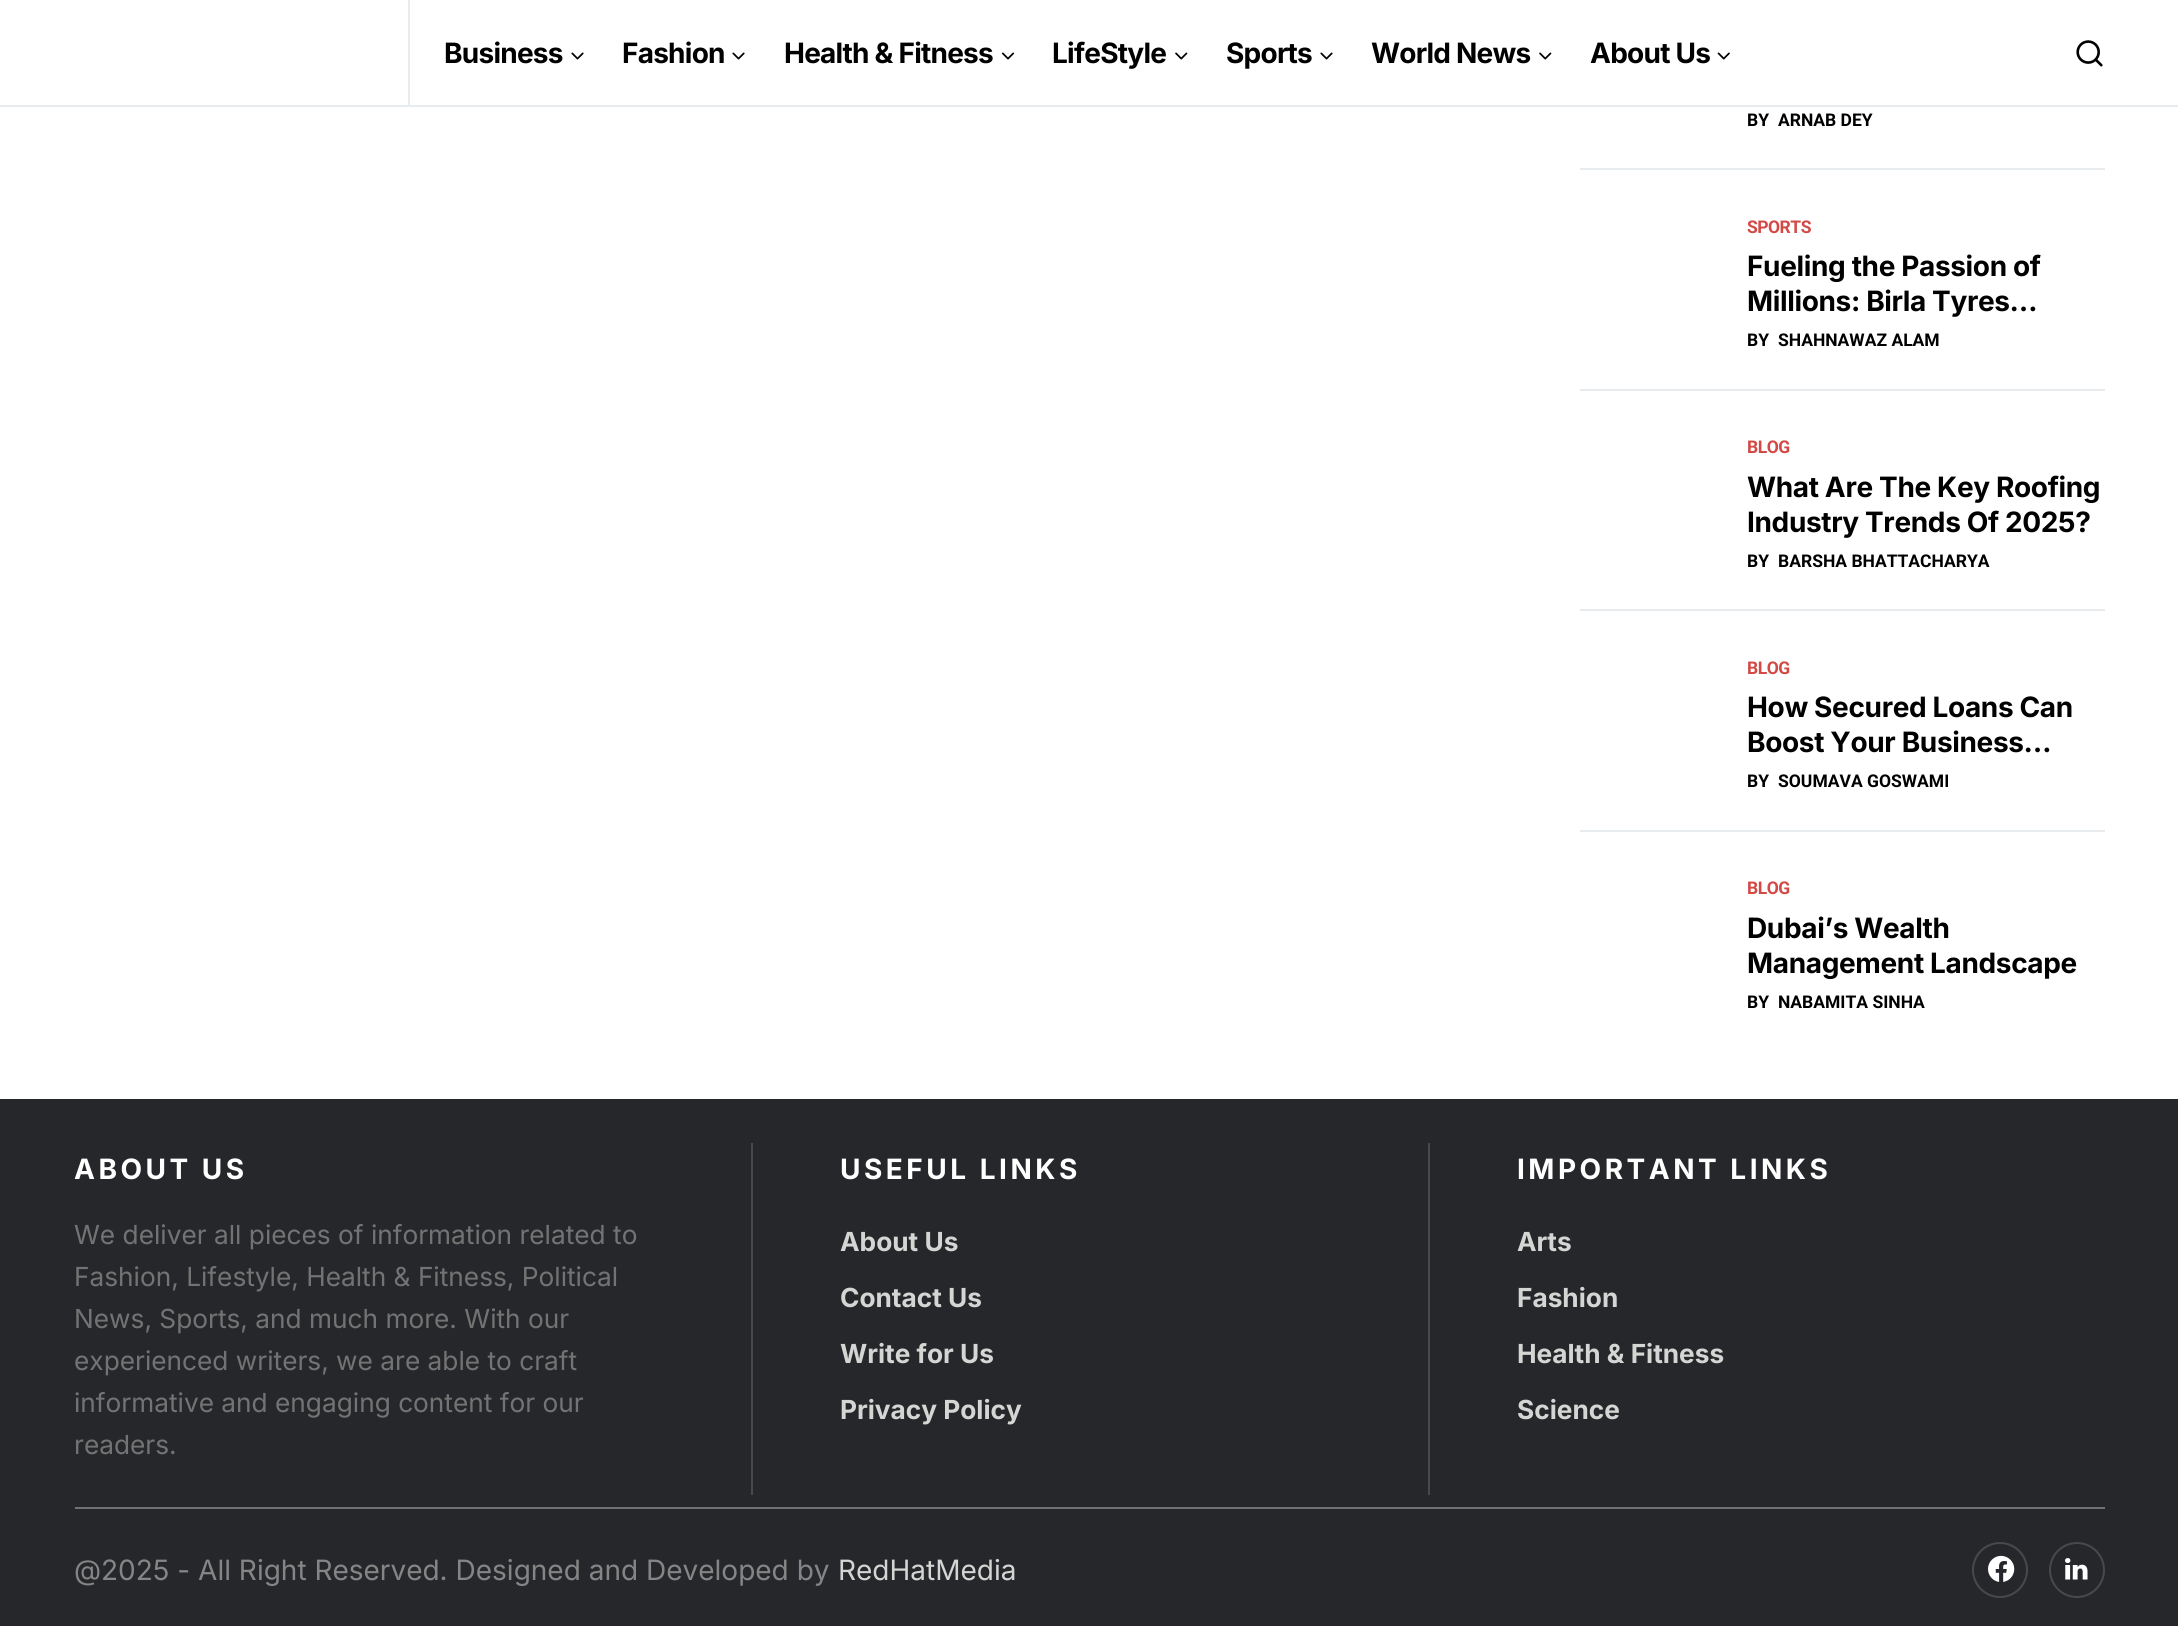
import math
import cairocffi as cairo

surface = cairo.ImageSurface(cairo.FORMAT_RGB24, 2178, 1626)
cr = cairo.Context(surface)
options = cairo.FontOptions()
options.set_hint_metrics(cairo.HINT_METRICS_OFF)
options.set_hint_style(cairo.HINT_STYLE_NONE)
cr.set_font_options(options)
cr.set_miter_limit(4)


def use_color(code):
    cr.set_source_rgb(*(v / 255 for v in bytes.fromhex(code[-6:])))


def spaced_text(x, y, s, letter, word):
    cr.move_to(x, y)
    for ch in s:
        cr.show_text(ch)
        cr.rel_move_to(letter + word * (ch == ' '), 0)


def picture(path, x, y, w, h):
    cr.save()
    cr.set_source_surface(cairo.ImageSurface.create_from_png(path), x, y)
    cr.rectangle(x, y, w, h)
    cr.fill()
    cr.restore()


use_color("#ffffff")
cr.paint()
use_color("#e9ecef")
cr.rectangle(0, 105, 2178, 2)
cr.fill()
cr.rectangle(408, 0, 2, 105)
cr.fill()
cr.select_font_face("Inter", cairo.FONT_SLANT_NORMAL, cairo.FONT_WEIGHT_BOLD)
cr.set_font_size(28)
use_color("#000000")
spaced_text(444, 63, "Business", -0.75, 0)
picture("img1.png", 571, 52, 13, 8)
spaced_text(622, 63, "Fashion", -0.75, 0)
picture("img1.png", 732, 52, 13, 8)
spaced_text(784, 63, "Health & Fitness", -0.75, 0)
picture("img2.png", 1001, 52, 14, 8)
spaced_text(1052, 63, "LifeStyle", -0.75, 0)
picture("img3.png", 1175, 52, 13, 8)
spaced_text(1226, 63, "Sports", -0.75, 0)
picture("img1.png", 1320, 52, 13, 8)
spaced_text(1371, 63, "World News", -0.75, 0)
picture("img3.png", 1539, 52, 13, 8)
spaced_text(1590, 63, "About Us", -0.75, 0)
picture("img4.png", 1717, 52, 13, 8)
picture("img5.png", 2076, 40, 27, 27)
cr.select_font_face("Roboto", cairo.FONT_SLANT_NORMAL, cairo.FONT_WEIGHT_BOLD)
cr.set_font_size(17.5)
cr.move_to(1747, 126)
cr.show_text("BY")
cr.move_to(1778, 126)
cr.show_text("ARNAB DEY")
use_color("#e9ecef")
cr.rectangle(1580, 168, 525, 2)
cr.fill()
use_color("#d24945")
spaced_text(1747, 233, "SPORTS", -0.5, 0)
cr.select_font_face("Inter", cairo.FONT_SLANT_NORMAL, cairo.FONT_WEIGHT_BOLD)
cr.set_font_size(28)
use_color("#000000")
spaced_text(1747, 276, "Fueling the Passion of", -0.35, 0)
spaced_text(1747, 311, "Millions: Birla Tyres…", -0.35, 0)
cr.select_font_face("Roboto", cairo.FONT_SLANT_NORMAL, cairo.FONT_WEIGHT_BOLD)
cr.set_font_size(17.5)
cr.move_to(1747, 346)
cr.show_text("BY")
cr.move_to(1778, 346)
cr.show_text("SHAHNAWAZ ALAM")
use_color("#e9ecef")
cr.rectangle(1580, 389, 525, 2)
cr.fill()
use_color("#d24945")
spaced_text(1747, 453, "BLOG", -0.5, 0)
cr.select_font_face("Inter", cairo.FONT_SLANT_NORMAL, cairo.FONT_WEIGHT_BOLD)
cr.set_font_size(28)
use_color("#000000")
spaced_text(1747, 497, "What Are The Key Roofing", -0.35, 0)
spaced_text(1747, 532, "Industry Trends Of 2025?", -0.35, 0)
cr.select_font_face("Roboto", cairo.FONT_SLANT_NORMAL, cairo.FONT_WEIGHT_BOLD)
cr.set_font_size(17.5)
cr.move_to(1747, 567)
cr.show_text("BY")
cr.move_to(1778, 567)
cr.show_text("BARSHA BHATTACHARYA")
use_color("#e9ecef")
cr.rectangle(1580, 609, 525, 2)
cr.fill()
use_color("#d24945")
spaced_text(1747, 674, "BLOG", -0.5, 0)
cr.select_font_face("Inter", cairo.FONT_SLANT_NORMAL, cairo.FONT_WEIGHT_BOLD)
cr.set_font_size(28)
use_color("#000000")
spaced_text(1747, 717, "How Secured Loans Can", -0.35, 0)
spaced_text(1747, 752, "Boost Your Business…", -0.35, 0)
cr.select_font_face("Roboto", cairo.FONT_SLANT_NORMAL, cairo.FONT_WEIGHT_BOLD)
cr.set_font_size(17.5)
cr.move_to(1747, 787)
cr.show_text("BY")
cr.move_to(1778, 787)
cr.show_text("SOUMAVA GOSWAMI")
use_color("#e9ecef")
cr.rectangle(1580, 830, 525, 2)
cr.fill()
use_color("#d24945")
spaced_text(1747, 894, "BLOG", -0.5, 0)
cr.select_font_face("Inter", cairo.FONT_SLANT_NORMAL, cairo.FONT_WEIGHT_BOLD)
cr.set_font_size(28)
use_color("#000000")
spaced_text(1747, 938, "Dubai’s Wealth", -0.35, 0)
spaced_text(1747, 973, "Management Landscape", -0.35, 0)
cr.select_font_face("Roboto", cairo.FONT_SLANT_NORMAL, cairo.FONT_WEIGHT_BOLD)
cr.set_font_size(17.5)
cr.move_to(1747, 1008)
cr.show_text("BY")
cr.move_to(1778, 1008)
cr.show_text("NABAMITA SINHA")
use_color("#26272b")
cr.rectangle(0, 1099, 2178, 527)
cr.fill()
cr.select_font_face("Inter", cairo.FONT_SLANT_NORMAL, cairo.FONT_WEIGHT_BOLD)
cr.set_font_size(28)
use_color("#ffffff")
spaced_text(74, 1179, "ABOUT US", 3.5, 0)
cr.select_font_face("Inter")
cr.set_font_size(26.25)
use_color("#737373")
cr.move_to(74, 1244)
cr.show_text("We deliver all pieces of information related to")
cr.move_to(74, 1286)
cr.show_text("Fashion, Lifestyle, Health & Fitness, Political")
cr.move_to(74, 1328)
cr.show_text("News, Sports, and much more. With our")
cr.move_to(74, 1370)
cr.show_text("experienced writers, we are able to craft")
cr.move_to(74, 1412)
cr.show_text("informative and engaging content for our")
cr.move_to(74, 1454)
cr.show_text("readers.")
use_color("#494949")
cr.rectangle(751, 1143, 2, 352)
cr.fill()
cr.select_font_face("Inter", cairo.FONT_SLANT_NORMAL, cairo.FONT_WEIGHT_BOLD)
cr.set_font_size(28)
use_color("#ffffff")
spaced_text(840, 1179, "USEFUL LINKS", 3.5, 0)
cr.set_font_size(26.25)
use_color("#d3d6d3")
cr.move_to(840, 1251)
cr.show_text("About Us")
cr.move_to(840, 1307)
cr.show_text("Contact Us")
cr.move_to(840, 1363)
cr.show_text("Write for Us")
cr.move_to(840, 1419)
cr.show_text("Privacy Policy")
use_color("#494949")
cr.rectangle(1428, 1143, 2, 352)
cr.fill()
cr.set_font_size(28)
use_color("#ffffff")
spaced_text(1517, 1179, "IMPORTANT LINKS", 3.5, 0)
cr.set_font_size(26.25)
use_color("#d3d6d3")
cr.move_to(1517, 1251)
cr.show_text("Arts")
cr.move_to(1517, 1307)
cr.show_text("Fashion")
cr.move_to(1517, 1363)
cr.show_text("Health & Fitness")
cr.move_to(1517, 1419)
cr.show_text("Science")
use_color("#717173")
cr.rectangle(75, 1507, 2030, 2)
cr.fill()
cr.select_font_face("Inter")
cr.set_font_size(28)
use_color("#858585")
cr.move_to(74, 1580)
cr.show_text("@2025 - All Right Reserved. Designed and Developed by")
use_color("#d3d6d3")
cr.move_to(838, 1580)
cr.show_text("RedHatMedia")
cr.new_path()
cr.arc(2000, 1570, 27, 0, 2 * math.pi)
use_color("#494949")
cr.stroke()
picture("img6.png", 1988, 1555, 27, 27)
cr.arc(2077, 1570, 27, 0, 2 * math.pi)
cr.stroke()
picture("img7.png", 2065, 1558, 23, 22)
surface.write_to_png("result.png")
